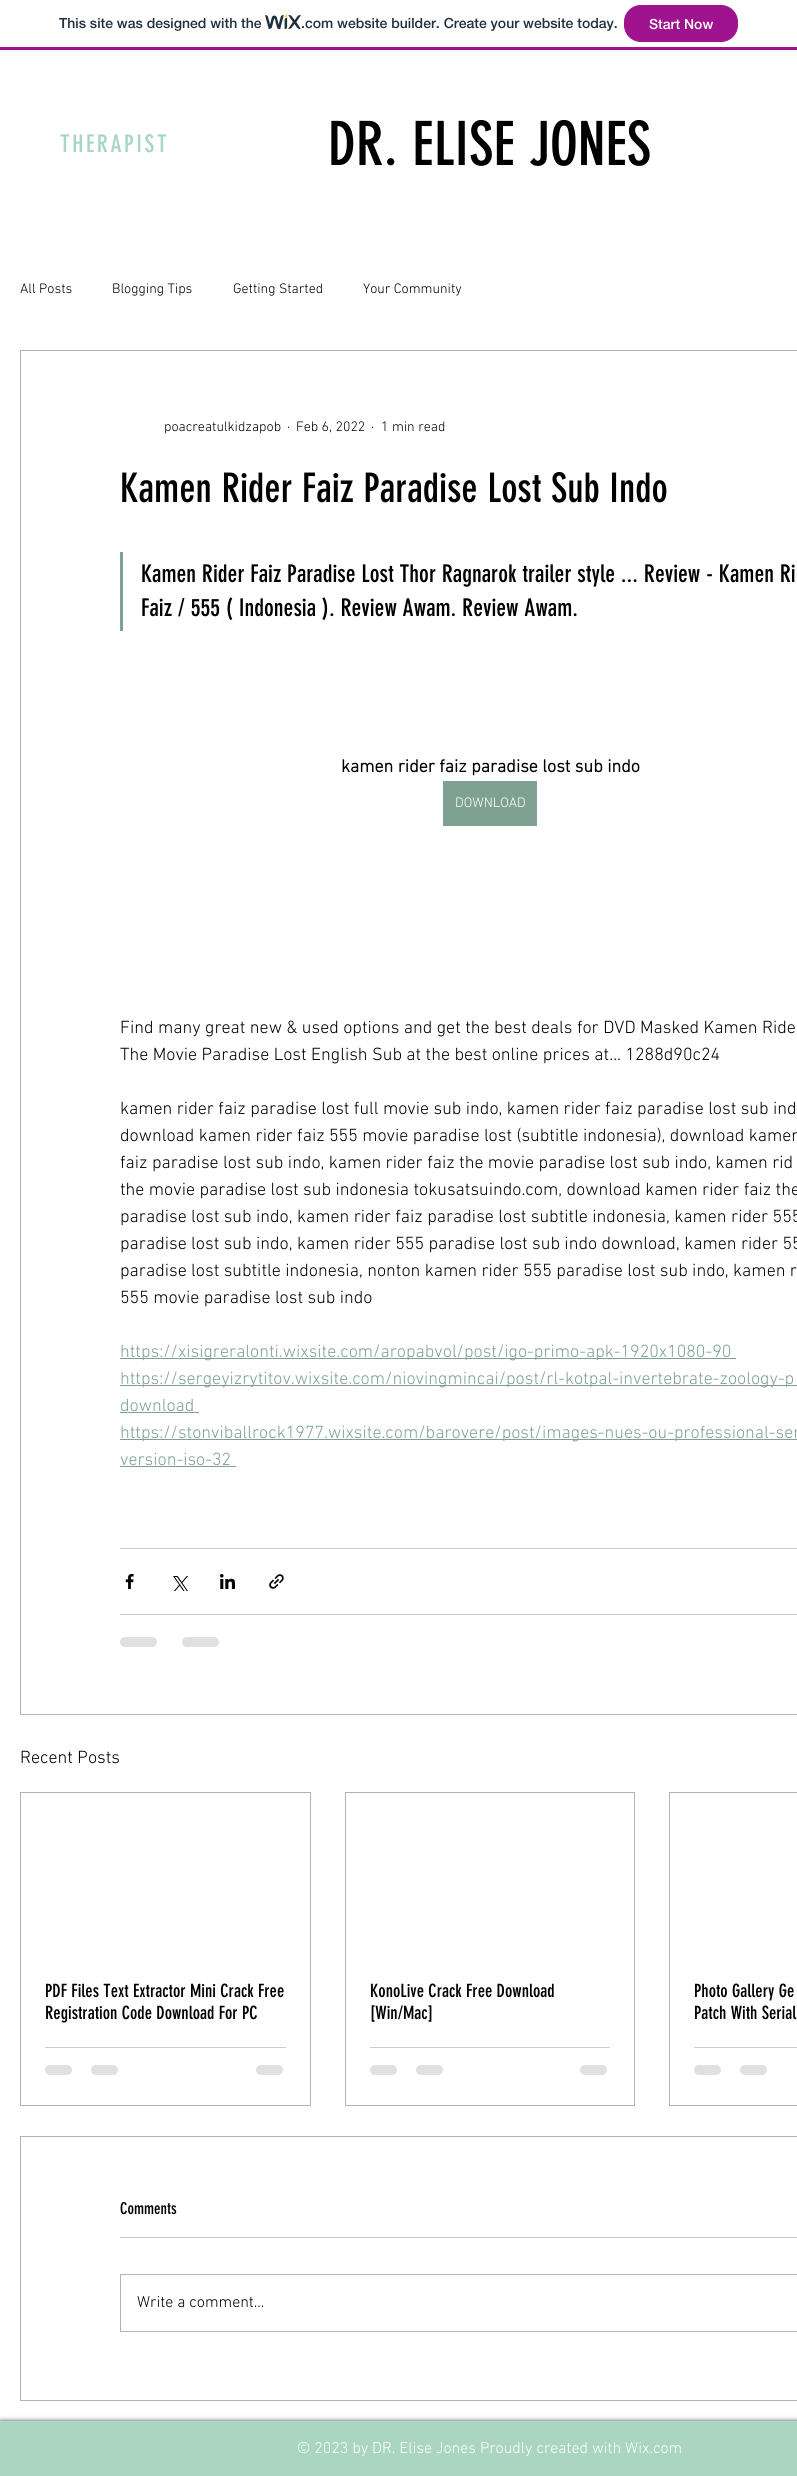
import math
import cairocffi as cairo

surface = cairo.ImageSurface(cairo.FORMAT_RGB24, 797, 2476)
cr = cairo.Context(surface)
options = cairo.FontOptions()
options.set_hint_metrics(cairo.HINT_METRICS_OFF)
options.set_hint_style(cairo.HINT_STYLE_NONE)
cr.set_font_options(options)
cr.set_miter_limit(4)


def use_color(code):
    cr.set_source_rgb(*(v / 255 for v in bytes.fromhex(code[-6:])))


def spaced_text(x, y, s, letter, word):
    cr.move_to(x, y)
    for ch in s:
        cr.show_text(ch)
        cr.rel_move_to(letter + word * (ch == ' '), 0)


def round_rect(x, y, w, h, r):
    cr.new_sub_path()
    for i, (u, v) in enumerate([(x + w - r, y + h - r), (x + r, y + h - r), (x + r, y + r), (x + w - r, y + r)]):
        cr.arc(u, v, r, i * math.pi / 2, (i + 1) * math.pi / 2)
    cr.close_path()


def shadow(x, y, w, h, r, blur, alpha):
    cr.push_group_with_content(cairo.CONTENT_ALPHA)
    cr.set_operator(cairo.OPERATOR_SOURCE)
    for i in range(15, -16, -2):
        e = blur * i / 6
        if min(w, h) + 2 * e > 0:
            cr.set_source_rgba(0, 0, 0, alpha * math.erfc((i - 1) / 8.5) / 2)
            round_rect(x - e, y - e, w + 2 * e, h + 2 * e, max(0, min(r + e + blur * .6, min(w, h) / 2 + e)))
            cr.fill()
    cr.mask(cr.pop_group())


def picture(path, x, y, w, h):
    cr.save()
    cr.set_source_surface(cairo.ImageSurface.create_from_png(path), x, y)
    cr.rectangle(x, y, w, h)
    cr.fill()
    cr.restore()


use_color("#ffffff")
cr.paint()
use_color("#a0138e")
cr.rectangle(0, 47, 797, 3)
cr.fill()
cr.select_font_face("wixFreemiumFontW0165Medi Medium")
cr.set_font_size(14)
use_color("#20303c")
cr.move_to(59, 28)
cr.show_text("This site was designed with the")
picture("img1.png", 265, 15, 36, 15)
cr.move_to(301, 28)
cr.show_text(".com website builder. Create your website today.")
use_color("#a0138e")
round_rect(624.5, 5.5, 113, 36, 16.5)
cr.fill_preserve()
cr.set_line_width(1)
cr.stroke()
use_color("#ffffff")
cr.move_to(649, 29)
cr.show_text("Start Now")
cr.select_font_face("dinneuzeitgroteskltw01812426")
cr.set_font_size(24)
use_color("#aad6c1")
spaced_text(60, 152, "THERAPIST", 2.5, 0)
cr.set_font_size(60)
use_color("#000000")
cr.move_to(328, 165)
cr.show_text("DR. ELISE JONES")
cr.select_font_face("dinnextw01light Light")
cr.set_font_size(14)
cr.move_to(20, 293)
cr.show_text("All Posts")
cr.move_to(112, 293)
cr.show_text("Blogging Tips")
cr.move_to(233, 293)
cr.show_text("Getting Started")
cr.move_to(363, 293)
cr.show_text("Your Community")
cr.rectangle(20.5, 350.5, 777, 1364)
use_color("#b3b3b3")
cr.stroke()
use_color("#000000")
cr.move_to(164, 431)
cr.show_text("poacreatulkidzapob")
cr.move_to(287, 431)
cr.show_text("·")
cr.move_to(296, 431)
cr.show_text("Feb 6, 2022")
cr.move_to(371, 431)
cr.show_text("·")
cr.move_to(381, 431)
cr.show_text("1 min read")
cr.select_font_face("dinneuzeitgroteskltw01812426")
cr.set_font_size(40)
cr.move_to(120, 502)
cr.show_text("Kamen Rider Faiz Paradise Lost Sub Indo")
use_color("#7fa191")
cr.rectangle(120, 552, 3, 79)
cr.fill()
cr.set_font_size(24)
use_color("#000000")
cr.move_to(141, 582)
cr.show_text("Kamen Rider Faiz Paradise Lost Thor Ragnarok trailer style ... Review - Kamen Ri")
cr.move_to(141, 616)
cr.show_text("Faiz / 555 ( Indonesia ). Review Awam. Review Awam.")
cr.select_font_face("dinnextw01light", cairo.FONT_SLANT_NORMAL, cairo.FONT_WEIGHT_BOLD)
cr.set_font_size(18)
cr.move_to(341, 772)
cr.show_text("kamen rider faiz paradise lost sub indo")
use_color("#7fa191")
cr.rectangle(443, 781, 94, 45)
cr.fill()
cr.select_font_face("dinnextw01light Light")
cr.set_font_size(14)
use_color("#ffffff")
cr.move_to(455, 807)
cr.show_text("DOWNLOAD")
cr.set_font_size(18)
use_color("#000000")
cr.move_to(120, 1033)
cr.show_text("Find many great new & used options and get the best deals for DVD Masked Kamen Ride")
cr.move_to(120, 1060)
cr.show_text("The Movie Paradise Lost English Sub at the best online prices at... 1288d90c24")
cr.move_to(120, 1114)
cr.show_text("kamen rider faiz paradise lost full movie sub indo, kamen rider faiz paradise lost sub ind")
cr.move_to(120, 1141)
cr.show_text("download kamen rider faiz 555 movie paradise lost (subtitle indonesia), download kamen")
cr.move_to(120, 1168)
cr.show_text("faiz paradise lost sub indo, kamen rider faiz the movie paradise lost sub indo, kamen rid")
cr.move_to(120, 1195)
cr.show_text("the movie paradise lost sub indonesia tokusatsuindo.com, download kamen rider faiz the")
cr.move_to(120, 1222)
cr.show_text("paradise lost sub indo, kamen rider faiz paradise lost subtitle indonesia, kamen rider 555")
cr.move_to(120, 1249)
cr.show_text("paradise lost sub indo, kamen rider 555 paradise lost sub indo download, kamen rider 55")
cr.move_to(120, 1276)
cr.show_text("paradise lost subtitle indonesia, nonton kamen rider 555 paradise lost sub indo, kamen r")
cr.move_to(120, 1303)
cr.show_text("555 movie paradise lost sub indo")
use_color("#7fa191")
cr.rectangle(120, 1358, 616, 1)
cr.fill()
cr.move_to(120, 1357)
cr.show_text("https://xisigreralonti.wixsite.com/aropabvol/post/igo-primo-apk-1920x1080-90")
cr.rectangle(120, 1385, 677, 1)
cr.fill()
cr.move_to(120, 1384)
cr.show_text("https://sergeyizrytitov.wixsite.com/niovingmincai/post/rl-kotpal-invertebrate-zoology-p")
cr.move_to(120, 1411)
cr.show_text("download")
cr.rectangle(120, 1412, 79, 1)
cr.fill()
cr.rectangle(120, 1439, 677, 1)
cr.fill()
cr.move_to(120, 1438)
cr.show_text("https://stonviballrock1977.wixsite.com/barovere/post/images-nues-ou-professional-ser")
cr.move_to(120, 1465)
cr.show_text("version-iso-32")
cr.rectangle(120, 1466, 116, 1)
cr.fill()
use_color("#cccccc")
cr.rectangle(120, 1548, 677, 1)
cr.fill()
picture("img2.png", 125, 1574, 9, 15)
picture("img3.png", 173, 1576, 15, 15)
picture("img4.png", 220, 1574, 15, 15)
picture("img5.png", 269, 1574, 15, 15)
cr.rectangle(120, 1614, 677, 1)
cr.fill()
use_color("#e0e0e0")
round_rect(120, 1637, 37, 10, 5)
cr.fill()
round_rect(182, 1637, 37, 10, 5)
cr.fill()
use_color("#000000")
cr.move_to(20, 1763)
cr.show_text("Recent Posts")
cr.rectangle(20.5, 1792.5, 290, 313)
use_color("#b3b3b3")
cr.stroke()
cr.select_font_face("dinneuzeitgroteskltw01812426")
use_color("#000000")
cr.move_to(45, 1997)
cr.show_text("PDF Files Text Extractor Mini Crack Free")
cr.move_to(45, 2019)
cr.show_text("Registration Code Download For PC")
use_color("#cccccc")
cr.rectangle(45, 2047, 241, 1)
cr.fill()
use_color("#e0e0e0")
round_rect(45, 2065, 27, 10, 5)
cr.fill()
round_rect(91, 2065, 27, 10, 5)
cr.fill()
round_rect(256, 2065, 27, 10, 5)
cr.fill()
cr.rectangle(345.5, 1792.5, 289, 313)
use_color("#b3b3b3")
cr.stroke()
use_color("#000000")
cr.move_to(370, 1997)
cr.show_text("KonoLive Crack Free Download")
cr.move_to(370, 2019)
cr.show_text("[Win/Mac]")
use_color("#cccccc")
cr.rectangle(370, 2047, 240, 1)
cr.fill()
use_color("#e0e0e0")
round_rect(370, 2065, 27, 10, 5)
cr.fill()
round_rect(416, 2065, 27, 10, 5)
cr.fill()
round_rect(580, 2065, 27, 10, 5)
cr.fill()
cr.rectangle(669.5, 1792.5, 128, 313)
use_color("#b3b3b3")
cr.stroke()
use_color("#000000")
cr.move_to(694, 1997)
cr.show_text("Photo Gallery Ge")
cr.move_to(694, 2019)
cr.show_text("Patch With Serial")
use_color("#cccccc")
cr.rectangle(694, 2047, 103, 1)
cr.fill()
use_color("#e0e0e0")
round_rect(694, 2065, 27, 10, 5)
cr.fill()
round_rect(740, 2065, 27, 10, 5)
cr.fill()
cr.rectangle(20.5, 2136.5, 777, 264)
use_color("#b3b3b3")
cr.stroke()
cr.set_font_size(16)
use_color("#000000")
cr.move_to(120, 2214)
cr.show_text("Comments")
use_color("#cccccc")
cr.rectangle(120, 2237, 677, 1)
cr.fill()
cr.rectangle(120.5, 2274.5, 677, 57)
use_color("#b3b3b3")
cr.stroke()
cr.select_font_face("dinnextw01light Light")
use_color("#000000")
cr.move_to(137, 2307)
cr.show_text("Write a comment...")
use_color("#000000")
shadow(0, 2421, 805, 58, 0, 2.5, 0.7)
use_color("#aad6c1")
cr.rectangle(0, 2421, 797, 55)
cr.fill()
use_color("#ffffff")
cr.move_to(297, 2453)
cr.show_text("© 2023 by DR. Elise Jones Proudly created with Wix.com")
surface.write_to_png("result.png")
